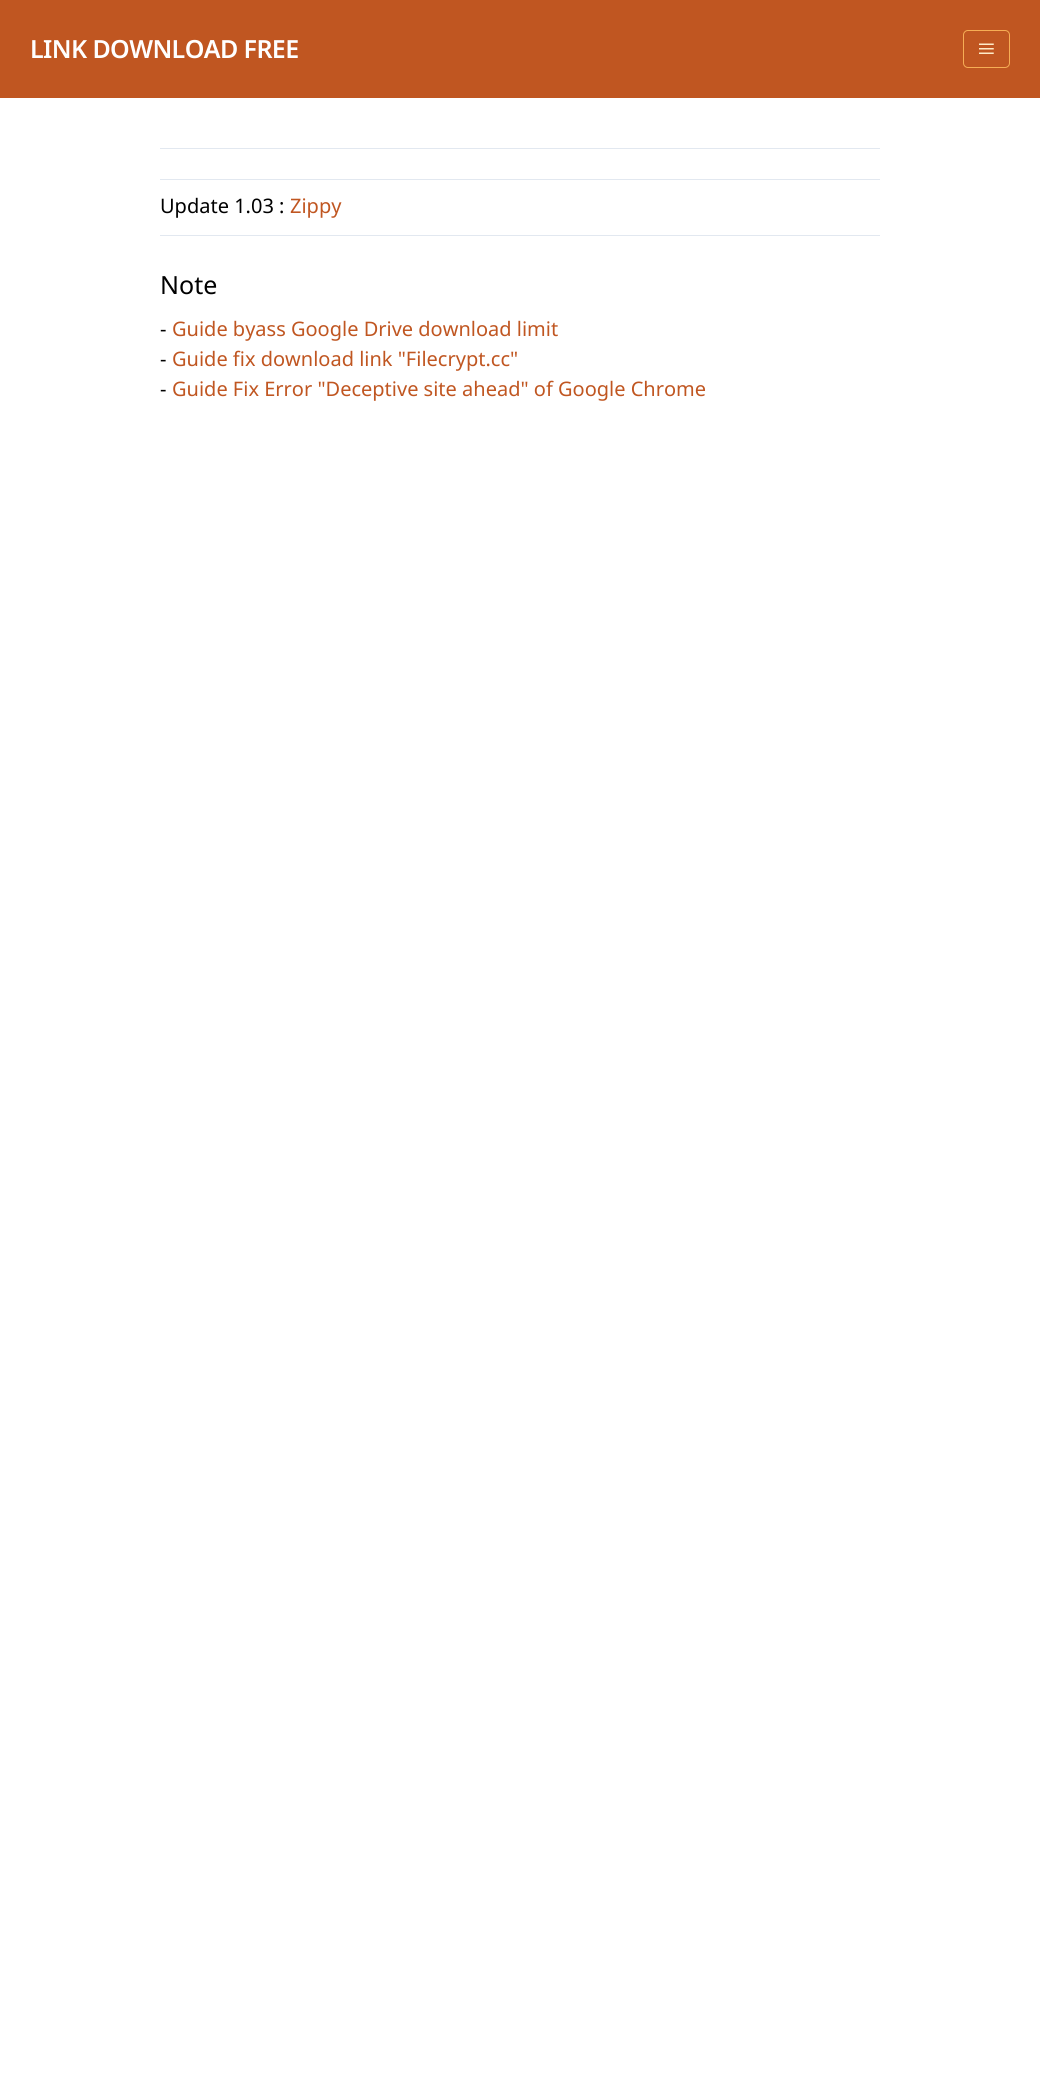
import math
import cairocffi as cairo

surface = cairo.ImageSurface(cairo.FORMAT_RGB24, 1040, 2086)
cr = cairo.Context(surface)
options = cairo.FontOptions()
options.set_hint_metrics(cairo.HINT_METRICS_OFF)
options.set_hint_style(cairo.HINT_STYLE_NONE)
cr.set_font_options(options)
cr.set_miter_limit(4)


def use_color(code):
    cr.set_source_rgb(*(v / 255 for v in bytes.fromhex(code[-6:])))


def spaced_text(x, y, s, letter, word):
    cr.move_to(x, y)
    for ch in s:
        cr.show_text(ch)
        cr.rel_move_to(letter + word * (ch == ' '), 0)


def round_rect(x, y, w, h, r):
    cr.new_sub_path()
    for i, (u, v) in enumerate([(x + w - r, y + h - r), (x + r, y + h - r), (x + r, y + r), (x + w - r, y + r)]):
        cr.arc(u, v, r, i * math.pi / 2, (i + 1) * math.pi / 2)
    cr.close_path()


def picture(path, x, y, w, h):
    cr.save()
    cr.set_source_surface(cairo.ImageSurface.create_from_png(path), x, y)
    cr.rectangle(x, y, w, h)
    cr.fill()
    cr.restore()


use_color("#ffffff")
cr.paint()
use_color("#c05621")
cr.rectangle(0, 0, 1040, 98)
cr.fill()
cr.select_font_face("Noto Sans SemiBold")
cr.set_font_size(25)
use_color("#ffffff")
spaced_text(30, 58, "LINK DOWNLOAD FREE", -0.6, 0)
round_rect(963.5, 30.5, 46, 37, 4.5)
use_color("#f6ad55")
cr.set_line_width(1)
cr.stroke()
picture("img1.png", 979, 43, 15, 11)
use_color("#e2e8f0")
cr.rectangle(160, 148, 720, 1)
cr.fill()
cr.rectangle(160, 179, 720, 1)
cr.fill()
cr.select_font_face("Noto Sans")
cr.set_font_size(20)
use_color("#000000")
cr.move_to(160, 213)
cr.show_text("Update 1.03 :")
use_color("#c05621")
cr.move_to(290, 213)
cr.show_text("Zippy")
use_color("#e2e8f0")
cr.rectangle(160, 235, 720, 1)
cr.fill()
cr.set_font_size(25)
use_color("#000000")
cr.move_to(160, 294)
cr.show_text("Note")
cr.set_font_size(20)
cr.move_to(160, 336)
cr.show_text("-")
use_color("#c05621")
cr.move_to(172, 336)
cr.show_text("Guide byass Google Drive download limit")
use_color("#000000")
cr.move_to(160, 366)
cr.show_text("-")
use_color("#c05621")
cr.move_to(172, 366)
cr.show_text("Guide fix download link \"Filecrypt.cc\"")
use_color("#000000")
cr.move_to(160, 396)
cr.show_text("-")
use_color("#c05621")
cr.move_to(172, 396)
cr.show_text("Guide Fix Error \"Deceptive site ahead\" of Google Chrome")
surface.write_to_png("result.png")
